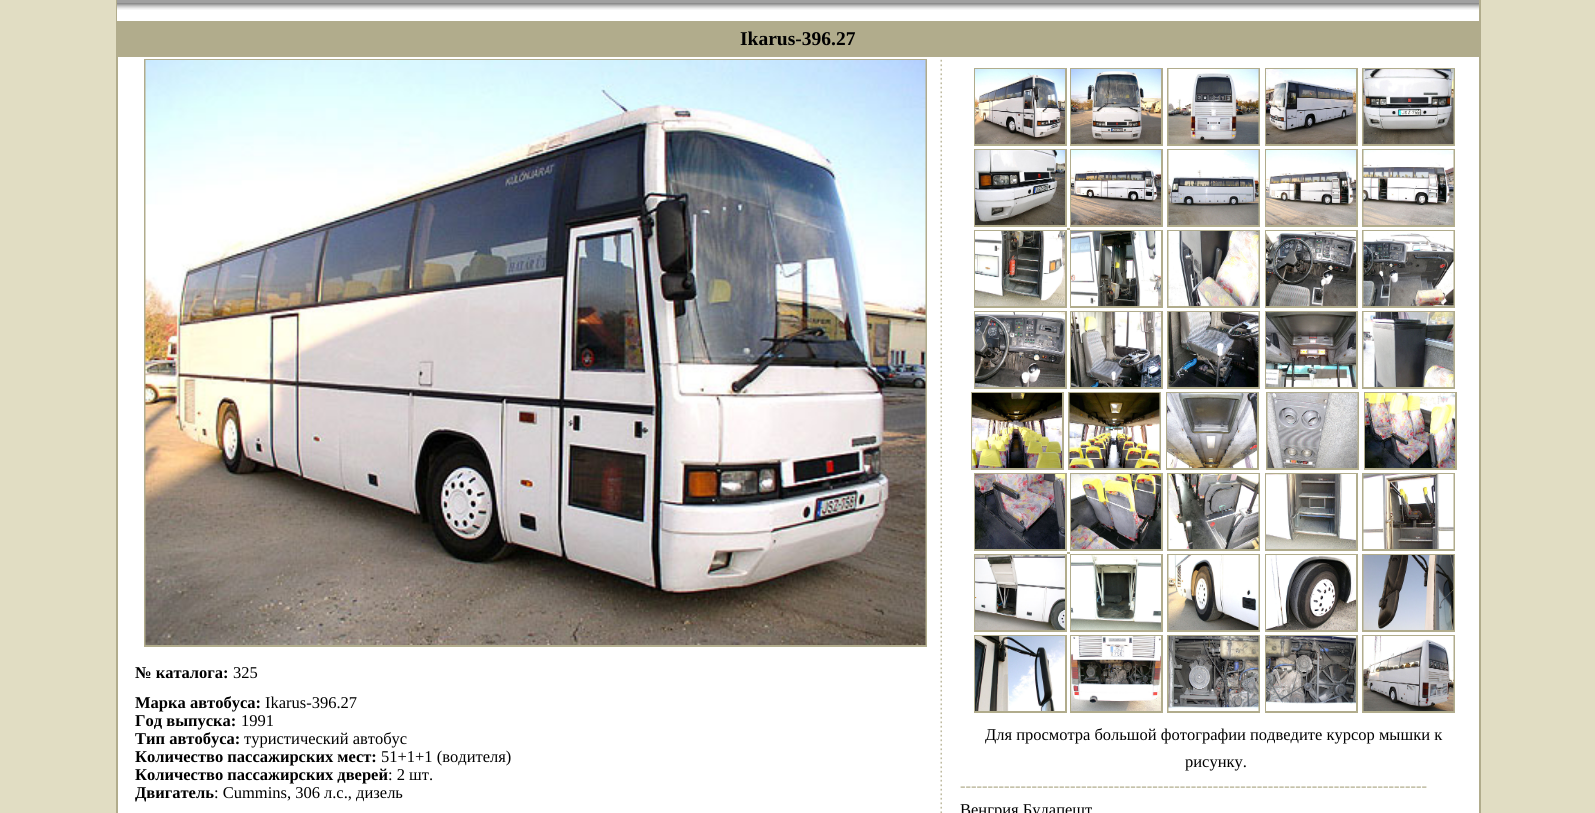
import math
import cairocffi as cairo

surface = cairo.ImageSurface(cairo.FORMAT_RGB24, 1595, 813)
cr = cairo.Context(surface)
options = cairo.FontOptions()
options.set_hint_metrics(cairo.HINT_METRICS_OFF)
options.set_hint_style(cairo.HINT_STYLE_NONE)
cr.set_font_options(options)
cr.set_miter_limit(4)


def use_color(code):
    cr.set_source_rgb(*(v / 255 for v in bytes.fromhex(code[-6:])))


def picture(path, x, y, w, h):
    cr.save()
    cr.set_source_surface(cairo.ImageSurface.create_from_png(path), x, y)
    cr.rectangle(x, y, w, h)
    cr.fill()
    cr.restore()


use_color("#e1ddc3")
cr.paint()
use_color("#b1ac8c")
cr.rectangle(1479, 0, 2, 813)
cr.fill()
cr.rectangle(116, 0, 1, 21)
cr.fill()
use_color("#a0a0a0")
cr.rectangle(117, 0, 1362, 3)
cr.fill()
use_color("#ffffff")
cr.rectangle(117, 10, 1362, 11)
cr.fill()
picture("img1.png", 117, 3, 1362, 7)
cr.rectangle(118, 57, 1361, 756)
cr.fill()
use_color("#b1ac8c")
cr.rectangle(116, 21, 2, 792)
cr.fill()
cr.rectangle(118, 21, 1361, 36)
cr.fill()
cr.select_font_face("Liberation Serif", cairo.FONT_SLANT_NORMAL, cairo.FONT_WEIGHT_BOLD)
cr.set_font_size(19.5)
use_color("#000000")
cr.move_to(740, 45)
cr.show_text("Ikarus-396.27")
cr.rectangle(145, 60, 781, 586)
use_color("#b1ac8c")
cr.stroke()
picture("img2.png", 145, 60, 781, 585)
cr.set_font_size(16.5)
use_color("#000000")
cr.move_to(135, 678)
cr.show_text("№ каталога:")
cr.select_font_face("Liberation Serif")
cr.move_to(233, 678)
cr.show_text("325")
cr.select_font_face("Liberation Serif", cairo.FONT_SLANT_NORMAL, cairo.FONT_WEIGHT_BOLD)
cr.move_to(135, 708)
cr.show_text("Марка автобуса:")
cr.select_font_face("Liberation Serif")
cr.move_to(265, 708)
cr.show_text("Ikarus-396.27")
cr.select_font_face("Liberation Serif", cairo.FONT_SLANT_NORMAL, cairo.FONT_WEIGHT_BOLD)
cr.move_to(135, 726)
cr.show_text("Год выпуска:")
cr.select_font_face("Liberation Serif")
cr.move_to(241, 726)
cr.show_text("1991")
cr.select_font_face("Liberation Serif", cairo.FONT_SLANT_NORMAL, cairo.FONT_WEIGHT_BOLD)
cr.move_to(135, 744)
cr.show_text("Тип автобуса:")
cr.select_font_face("Liberation Serif")
cr.move_to(244, 744)
cr.show_text("туристический автобус")
cr.select_font_face("Liberation Serif", cairo.FONT_SLANT_NORMAL, cairo.FONT_WEIGHT_BOLD)
cr.move_to(135, 762)
cr.show_text("Количество пассажирских мест:")
cr.select_font_face("Liberation Serif")
cr.move_to(381, 762)
cr.show_text("51+1+1 (водителя)")
cr.select_font_face("Liberation Serif", cairo.FONT_SLANT_NORMAL, cairo.FONT_WEIGHT_BOLD)
cr.move_to(135, 780)
cr.show_text("Количество пассажирских дверей")
cr.select_font_face("Liberation Serif")
cr.move_to(388, 780)
cr.show_text(": 2 шт.")
cr.select_font_face("Liberation Serif", cairo.FONT_SLANT_NORMAL, cairo.FONT_WEIGHT_BOLD)
cr.move_to(135, 798)
cr.show_text("Двигатель")
cr.select_font_face("Liberation Serif")
cr.move_to(214, 798)
cr.show_text(": Cummins, 306 л.с., дизель")
picture("img3.png", 940, 59, 2, 754)
cr.rectangle(975, 69, 91, 76)
use_color("#b1ac8c")
cr.stroke()
cr.rectangle(1071, 69, 91, 76)
cr.stroke()
cr.rectangle(1168, 69, 91, 76)
cr.stroke()
cr.rectangle(1266, 69, 91, 76)
cr.stroke()
cr.rectangle(1363, 69, 91, 76)
cr.stroke()
picture("img4.png", 975, 69, 90, 75)
picture("img5.png", 1071, 69, 90, 75)
picture("img6.png", 1168, 69, 91, 75)
picture("img7.png", 1266, 69, 90, 75)
picture("img8.png", 1363, 69, 91, 75)
cr.rectangle(975, 150, 91, 76)
cr.stroke()
cr.rectangle(1071, 150, 91, 76)
cr.stroke()
cr.rectangle(1168, 150, 91, 76)
cr.stroke()
cr.rectangle(1266, 150, 91, 76)
cr.stroke()
cr.rectangle(1363, 150, 91, 76)
cr.stroke()
picture("img9.png", 975, 150, 90, 75)
picture("img10.png", 1071, 150, 90, 75)
picture("img11.png", 1168, 150, 91, 75)
picture("img12.png", 1266, 150, 90, 75)
picture("img13.png", 1363, 150, 91, 75)
cr.rectangle(1067, 228, 3, 2)
cr.fill()
cr.rectangle(975, 231, 91, 76)
cr.stroke()
cr.rectangle(1071, 231, 91, 76)
cr.stroke()
cr.rectangle(1168, 231, 91, 76)
cr.stroke()
cr.rectangle(1266, 231, 91, 76)
cr.stroke()
cr.rectangle(1363, 231, 91, 76)
cr.stroke()
picture("img14.png", 975, 231, 90, 75)
picture("img15.png", 1071, 231, 90, 75)
picture("img16.png", 1168, 231, 91, 75)
picture("img17.png", 1266, 231, 90, 75)
picture("img18.png", 1363, 231, 91, 75)
cr.rectangle(975, 312, 91, 76)
cr.stroke()
cr.rectangle(1071, 312, 91, 76)
cr.stroke()
cr.rectangle(1168, 312, 91, 76)
cr.stroke()
cr.rectangle(1266, 312, 91, 76)
cr.stroke()
cr.rectangle(1363, 312, 91, 76)
cr.stroke()
picture("img19.png", 975, 312, 90, 75)
picture("img20.png", 1071, 312, 90, 75)
picture("img21.png", 1168, 312, 91, 75)
picture("img22.png", 1266, 312, 90, 75)
picture("img23.png", 1363, 312, 91, 75)
cr.rectangle(972, 393, 91, 76)
cr.stroke()
cr.rectangle(1069, 393, 91, 76)
cr.stroke()
cr.rectangle(1167, 393, 91, 76)
cr.stroke()
cr.rectangle(1267, 393, 91, 76)
cr.stroke()
cr.rectangle(1365, 393, 91, 76)
cr.stroke()
picture("img24.png", 972, 393, 90, 75)
picture("img25.png", 1069, 393, 91, 75)
picture("img26.png", 1167, 393, 90, 75)
picture("img27.png", 1267, 393, 91, 75)
picture("img28.png", 1365, 393, 90, 75)
cr.rectangle(975, 474, 91, 76)
cr.stroke()
cr.rectangle(1071, 474, 91, 76)
cr.stroke()
cr.rectangle(1168, 474, 91, 76)
cr.stroke()
cr.rectangle(1266, 474, 91, 76)
cr.stroke()
cr.rectangle(1363, 474, 91, 76)
cr.stroke()
picture("img29.png", 975, 474, 90, 75)
picture("img30.png", 1071, 474, 90, 75)
picture("img31.png", 1168, 474, 91, 75)
picture("img32.png", 1266, 474, 90, 75)
picture("img33.png", 1363, 474, 91, 75)
cr.rectangle(1067, 552, 3, 2)
cr.fill()
cr.rectangle(975, 555, 91, 76)
cr.stroke()
cr.rectangle(1071, 555, 91, 76)
cr.stroke()
cr.rectangle(1168, 555, 91, 76)
cr.stroke()
cr.rectangle(1266, 555, 91, 76)
cr.stroke()
cr.rectangle(1363, 555, 91, 76)
cr.stroke()
picture("img34.png", 975, 555, 90, 75)
picture("img35.png", 1071, 555, 90, 75)
picture("img36.png", 1168, 555, 91, 75)
picture("img37.png", 1266, 555, 90, 75)
picture("img38.png", 1363, 555, 91, 75)
cr.rectangle(975, 636, 91, 76)
cr.stroke()
cr.rectangle(1071, 636, 91, 76)
cr.stroke()
cr.rectangle(1168, 636, 91, 76)
cr.stroke()
cr.rectangle(1266, 636, 91, 76)
cr.stroke()
cr.rectangle(1363, 636, 91, 76)
cr.stroke()
picture("img39.png", 975, 636, 90, 75)
picture("img40.png", 1071, 636, 90, 75)
picture("img41.png", 1168, 636, 91, 75)
picture("img42.png", 1266, 636, 90, 75)
picture("img43.png", 1363, 636, 91, 75)
use_color("#000000")
cr.move_to(985, 740)
cr.show_text("Для просмотра большой фотографии подведите курсор мышки к")
cr.move_to(1185, 767)
cr.show_text("рисунку.")
use_color("#b1ac8c")
cr.move_to(960, 791)
cr.show_text("-------------------------------------------------------------------------------------")
use_color("#000000")
cr.move_to(960, 815)
cr.show_text("Венгрия Будапешт")
surface.write_to_png("result.png")
